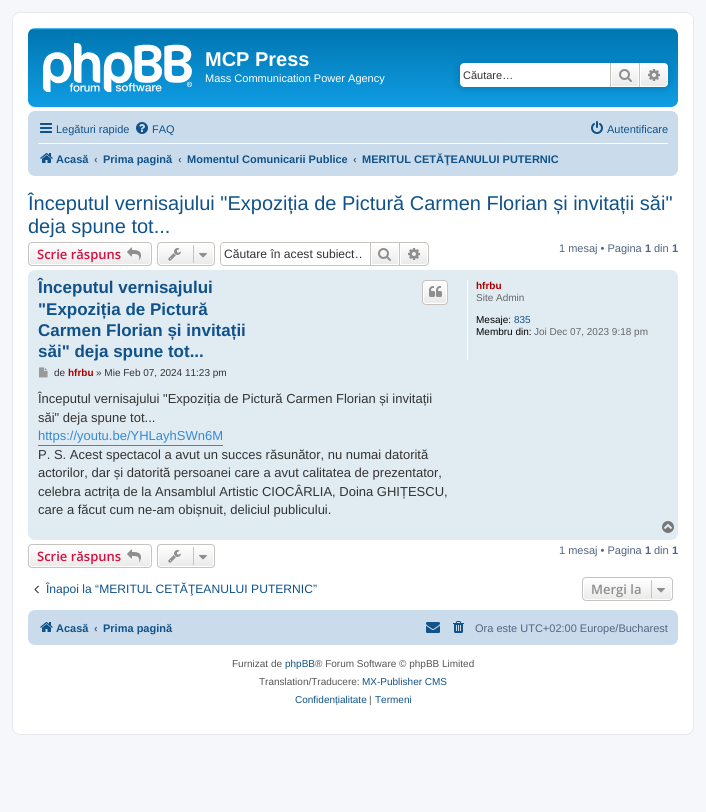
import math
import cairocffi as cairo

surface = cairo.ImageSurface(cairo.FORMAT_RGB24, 706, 812)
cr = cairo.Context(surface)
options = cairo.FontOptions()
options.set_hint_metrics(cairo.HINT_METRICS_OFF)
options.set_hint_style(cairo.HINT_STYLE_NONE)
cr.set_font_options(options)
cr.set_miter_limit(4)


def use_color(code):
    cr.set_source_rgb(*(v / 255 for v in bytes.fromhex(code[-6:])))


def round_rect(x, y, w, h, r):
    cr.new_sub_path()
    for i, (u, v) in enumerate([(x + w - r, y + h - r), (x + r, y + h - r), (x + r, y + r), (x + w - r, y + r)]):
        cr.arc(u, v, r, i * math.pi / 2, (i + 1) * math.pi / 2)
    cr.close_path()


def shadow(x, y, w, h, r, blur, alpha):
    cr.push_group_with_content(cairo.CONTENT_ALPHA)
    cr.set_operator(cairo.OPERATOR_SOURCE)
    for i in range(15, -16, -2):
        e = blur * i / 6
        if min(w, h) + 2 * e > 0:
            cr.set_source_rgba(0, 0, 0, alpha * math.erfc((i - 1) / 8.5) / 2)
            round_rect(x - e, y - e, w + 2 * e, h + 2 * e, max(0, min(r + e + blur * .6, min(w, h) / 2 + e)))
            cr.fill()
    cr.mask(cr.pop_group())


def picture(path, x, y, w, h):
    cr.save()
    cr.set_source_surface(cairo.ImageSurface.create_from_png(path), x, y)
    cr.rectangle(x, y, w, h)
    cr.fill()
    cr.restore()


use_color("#f5f7fa")
cr.paint()
use_color("#ffffff")
round_rect(12.5, 12.5, 681, 722, 7.5)
cr.fill_preserve()
use_color("#e6e9ed")
cr.set_line_width(1)
cr.stroke()
gradient = cairo.LinearGradient(353, 28, 353, 120)
gradient.add_color_stop_rgba(0, 0.416, 0.808, 1, 1)
gradient.add_color_stop_rgba(0.02, 0, 0.463, 0.694, 1)
gradient.add_color_stop_rgba(1, 0.071, 0.639, 0.922, 1)
cr.set_source(gradient)
round_rect(28, 28, 650, 79, 7)
cr.fill()
picture("img1.png", 43, 43, 149, 49)
cr.select_font_face("Liberation Sans", cairo.FONT_SLANT_NORMAL, cairo.FONT_WEIGHT_BOLD)
cr.set_font_size(20)
use_color("#ffffff")
cr.move_to(205, 66)
cr.show_text("MCP Press")
cr.select_font_face("Liberation Sans")
cr.set_font_size(11)
cr.move_to(205, 82)
cr.show_text("Mass Communication Power Agency")
use_color("#0075b0")
shadow(460, 63, 208, 24, 4, 5, 1)
use_color("#ffffff")
cr.new_path()
cr.move_to(464, 63)
cr.line_to(610, 63)
cr.line_to(610, 87)
cr.line_to(464, 87)
cr.curve_to(462, 87, 460, 85, 460, 83)
cr.line_to(460, 67)
cr.curve_to(460, 65, 462, 63, 464, 63)
cr.close_path()
cr.fill()
use_color("#333333")
cr.move_to(463, 79)
cr.show_text("Căutare…")
gradient = cairo.LinearGradient(625, 63, 625, 87)
gradient.add_color_stop_rgba(0, 1, 1, 1, 1)
gradient.add_color_stop_rgba(1, 0.914, 0.914, 0.914, 1)
cr.set_source(gradient)
cr.rectangle(612, 64, 26, 22)
cr.fill()
cr.rectangle(611.5, 63.5, 27, 23)
use_color("#ffffff")
cr.stroke()
use_color("#c7c3bf")
cr.rectangle(639, 63, 1, 24)
cr.fill()
cr.rectangle(610, 63, 1, 24)
cr.fill()
picture("img2.png", 619, 69, 13, 13)
gradient = cairo.LinearGradient(654, 63, 654, 87)
gradient.add_color_stop_rgba(0, 1, 1, 1, 1)
gradient.add_color_stop_rgba(1, 0.914, 0.914, 0.914, 1)
cr.set_source(gradient)
cr.new_path()
cr.move_to(640.5, 63.5)
cr.line_to(664, 63.5)
cr.curve_to(666, 63.5, 667.5, 65, 667.5, 67)
cr.line_to(667.5, 83)
cr.curve_to(667.5, 85, 666, 86.5, 664, 86.5)
cr.line_to(640.5, 86.5)
cr.close_path()
cr.fill_preserve()
use_color("#ffffff")
cr.stroke()
picture("img3.png", 648, 69, 12, 12)
use_color("#cadceb")
round_rect(28, 111, 650, 65, 7)
cr.fill()
picture("img4.png", 40, 123, 12, 10)
use_color("#105289")
cr.move_to(56, 133)
cr.show_text("Legături rapide")
picture("img5.png", 136, 122, 12, 12)
cr.move_to(152, 133)
cr.show_text("FAQ")
picture("img6.png", 591, 121, 12, 13)
cr.move_to(607, 133)
cr.show_text("Autentificare")
use_color("#ffffff")
cr.rectangle(38, 143, 630, 1)
cr.fill()
picture("img7.png", 40, 153, 13, 10)
cr.select_font_face("Liberation Sans", cairo.FONT_SLANT_NORMAL, cairo.FONT_WEIGHT_BOLD)
use_color("#105289")
cr.move_to(56, 163)
cr.show_text("Acasă")
use_color("#536482")
cr.move_to(94, 163)
cr.show_text("‹")
use_color("#105289")
cr.move_to(103, 163)
cr.show_text("Prima pagină")
use_color("#536482")
cr.move_to(178, 163)
cr.show_text("‹")
use_color("#105289")
cr.move_to(187, 163)
cr.show_text("Momentul Comunicarii Publice")
use_color("#536482")
cr.move_to(353, 163)
cr.show_text("‹")
use_color("#105289")
cr.move_to(362, 163)
cr.show_text("MERITUL CETĂŢEANULUI PUTERNIC")
cr.select_font_face("Liberation Sans")
cr.set_font_size(20)
cr.move_to(28, 210)
cr.show_text("Începutul vernisajului \"Expoziția de Pictură Carmen Florian și invitații săi\"")
cr.move_to(28, 233)
cr.show_text("deja spune tot...")
cr.save()
round_rect(28, 242, 124, 24, 4)
cr.clip()
gradient = cairo.LinearGradient(90, 243, 90, 265)
gradient.add_color_stop_rgba(0, 1, 1, 1, 1)
gradient.add_color_stop_rgba(1, 0.914, 0.914, 0.914, 1)
cr.set_source(gradient)
cr.rectangle(28, 243, 124, 22)
cr.fill()
cr.restore()
round_rect(29.5, 243.5, 121, 21, 2.5)
use_color("#ffffff")
cr.stroke()
round_rect(28.5, 242.5, 123, 23, 3.5)
use_color("#c7c3bf")
cr.stroke()
cr.select_font_face("Open Sans SemiBold")
cr.set_font_size(13)
use_color("#d31141")
cr.move_to(37, 259)
cr.show_text("Scrie răspuns")
picture("img8.png", 127, 247, 14, 13)
cr.save()
round_rect(157, 242, 58, 24, 4)
cr.clip()
gradient = cairo.LinearGradient(186, 243, 186, 265)
gradient.add_color_stop_rgba(0, 1, 1, 1, 1)
gradient.add_color_stop_rgba(1, 0.914, 0.914, 0.914, 1)
cr.set_source(gradient)
cr.rectangle(157, 243, 58, 22)
cr.fill()
cr.restore()
round_rect(158.5, 243.5, 55, 21, 2.5)
use_color("#ffffff")
cr.stroke()
round_rect(157.5, 242.5, 57, 23, 3.5)
use_color("#c7c3bf")
cr.stroke()
picture("img9.png", 168, 248, 13, 13)
cr.rectangle(193, 245, 1, 18)
cr.fill()
picture("img10.png", 199, 253, 8, 5)
cr.set_fill_rule(cairo.FILL_RULE_EVEN_ODD)
cr.new_path()
cr.move_to(224, 242)
cr.line_to(370, 242)
cr.line_to(370, 266)
cr.line_to(224, 266)
cr.curve_to(222, 266, 220, 264, 220, 262)
cr.line_to(220, 246)
cr.curve_to(220, 244, 222, 242, 224, 242)
cr.close_path()
cr.move_to(224, 243)
cr.line_to(370, 243)
cr.line_to(370, 265)
cr.line_to(224, 265)
cr.curve_to(222, 265, 221, 264, 221, 262)
cr.line_to(221, 246)
cr.curve_to(221, 244, 222, 243, 224, 243)
cr.close_path()
cr.fill()
cr.save()
cr.set_fill_rule(cairo.FILL_RULE_WINDING)
cr.rectangle(224, 247, 139, 14)
cr.clip()
cr.select_font_face("Liberation Sans")
cr.set_font_size(12.1)
use_color("#333333")
cr.move_to(224, 258)
cr.show_text("Căutare în acest subiect…")
cr.restore()
gradient = cairo.LinearGradient(385, 243, 385, 265)
gradient.add_color_stop_rgba(0, 1, 1, 1, 1)
gradient.add_color_stop_rgba(1, 0.914, 0.914, 0.914, 1)
cr.set_source(gradient)
cr.rectangle(372, 246, 26, 18)
cr.fill()
cr.rectangle(370.5, 242.5, 29, 23)
use_color("#c7c3bf")
cr.stroke()
picture("img11.png", 378, 248, 13, 13)
gradient = cairo.LinearGradient(414, 243, 414, 265)
gradient.add_color_stop_rgba(0, 1, 1, 1, 1)
gradient.add_color_stop_rgba(1, 0.914, 0.914, 0.914, 1)
cr.set_source(gradient)
cr.new_path()
cr.move_to(400.5, 243.5)
cr.line_to(425, 243.5)
cr.curve_to(426.5, 243.5, 427.5, 244.5, 427.5, 246)
cr.line_to(427.5, 262)
cr.curve_to(427.5, 263.5, 426.5, 264.5, 425, 264.5)
cr.line_to(400.5, 264.5)
cr.close_path()
cr.fill_preserve()
use_color("#ffffff")
cr.stroke()
use_color("#c7c3bf")
cr.new_path()
cr.move_to(400, 242)
cr.line_to(425, 242)
cr.curve_to(427, 242, 429, 244, 429, 246)
cr.line_to(429, 262)
cr.curve_to(429, 264, 427, 266, 425, 266)
cr.line_to(400, 266)
cr.close_path()
cr.move_to(400, 243)
cr.line_to(425, 243)
cr.curve_to(426.5, 243, 428, 244.5, 428, 246)
cr.line_to(428, 262)
cr.curve_to(428, 263.5, 426.5, 265, 425, 265)
cr.line_to(400, 265)
cr.close_path()
cr.fill()
picture("img12.png", 408, 248, 12, 12)
cr.select_font_face("Liberation Sans")
cr.set_font_size(11)
use_color("#536482")
cr.move_to(559, 252)
cr.show_text("1 mesaj • Pagina")
cr.select_font_face("Liberation Sans", cairo.FONT_SLANT_NORMAL, cairo.FONT_WEIGHT_BOLD)
cr.move_to(645, 252)
cr.show_text("1")
cr.select_font_face("Liberation Sans")
cr.move_to(654, 252)
cr.show_text("din")
cr.select_font_face("Liberation Sans", cairo.FONT_SLANT_NORMAL, cairo.FONT_WEIGHT_BOLD)
cr.move_to(672, 252)
cr.show_text("1")
use_color("#e1ebf2")
round_rect(28, 270, 650, 270, 7)
cr.fill()
cr.set_font_size(17)
use_color("#105289")
cr.move_to(38, 293)
cr.show_text("Începutul vernisajului")
cr.move_to(38, 315)
cr.show_text("\"Expoziția de Pictură")
cr.move_to(38, 336)
cr.show_text("Carmen Florian și invitații")
cr.move_to(38, 357)
cr.show_text("săi\" deja spune tot...")
cr.save()
cr.set_fill_rule(cairo.FILL_RULE_WINDING)
round_rect(422, 280, 26, 25, 4)
cr.clip()
gradient = cairo.LinearGradient(435, 281, 435, 304)
gradient.add_color_stop_rgba(0, 1, 1, 1, 1)
gradient.add_color_stop_rgba(1, 0.914, 0.914, 0.914, 1)
cr.set_source(gradient)
cr.rectangle(422, 281, 26, 23)
cr.fill()
cr.restore()
round_rect(423.5, 281.5, 23, 22, 2.5)
use_color("#ffffff")
cr.stroke()
round_rect(422.5, 280.5, 25, 24, 3.5)
use_color("#c7c3bf")
cr.stroke()
picture("img13.png", 429, 286, 13, 11)
picture("img14.png", 39, 367, 9, 11)
cr.select_font_face("Liberation Sans")
cr.set_font_size(10)
use_color("#333333")
cr.move_to(54, 376)
cr.show_text("de")
cr.select_font_face("Liberation Sans", cairo.FONT_SLANT_NORMAL, cairo.FONT_WEIGHT_BOLD)
use_color("#aa0000")
cr.move_to(68, 376)
cr.show_text("hfrbu")
cr.select_font_face("Liberation Sans")
use_color("#333333")
cr.move_to(96, 376)
cr.show_text("» Mie Feb 07, 2024 11:23 pm")
cr.set_font_size(13)
cr.move_to(38, 403)
cr.show_text("Începutul vernisajului \"Expoziția de Pictură Carmen Florian și invitații")
cr.move_to(38, 422)
cr.show_text("săi\" deja spune tot...")
use_color("#368ad2")
cr.rectangle(38, 445, 185, 1)
cr.fill()
cr.move_to(38, 440)
cr.show_text("https://youtu.be/YHLayhSWn6M")
use_color("#333333")
cr.move_to(38, 459)
cr.show_text("P. S. Acest spectacol a avut un succes răsunător, nu numai datorită")
cr.move_to(38, 477)
cr.show_text("actorilor, dar și datorită persoanei care a avut calitatea de prezentator,")
cr.move_to(38, 496)
cr.show_text("celebra actrița de la Ansamblul Artistic CIOCÂRLIA, Doina GHIȚESCU,")
cr.move_to(38, 514)
cr.show_text("care a făcut cum ne-am obișnuit, deliciul publicului.")
use_color("#ffffff")
cr.rectangle(467, 280, 1, 80)
cr.fill()
cr.select_font_face("Liberation Sans", cairo.FONT_SLANT_NORMAL, cairo.FONT_WEIGHT_BOLD)
cr.set_font_size(10)
use_color("#aa0000")
cr.move_to(476, 289)
cr.show_text("hfrbu")
cr.select_font_face("Liberation Sans")
use_color("#666666")
cr.move_to(476, 301)
cr.show_text("Site Admin")
use_color("#000000")
cr.move_to(476, 323)
cr.show_text("Mesaje:")
use_color("#105289")
cr.move_to(514, 323)
cr.show_text("835")
use_color("#000000")
cr.move_to(476, 335)
cr.show_text("Membru din:")
use_color("#666666")
cr.move_to(534, 335)
cr.show_text("Joi Dec 07, 2023 9:18 pm")
picture("img15.png", 662, 521, 12, 12)
cr.save()
cr.set_fill_rule(cairo.FILL_RULE_WINDING)
round_rect(28, 544, 124, 24, 4)
cr.clip()
gradient = cairo.LinearGradient(90, 545, 90, 567)
gradient.add_color_stop_rgba(0, 1, 1, 1, 1)
gradient.add_color_stop_rgba(1, 0.914, 0.914, 0.914, 1)
cr.set_source(gradient)
cr.rectangle(28, 545, 124, 22)
cr.fill()
cr.restore()
round_rect(29.5, 545.5, 121, 21, 2.5)
use_color("#ffffff")
cr.stroke()
round_rect(28.5, 544.5, 123, 23, 3.5)
use_color("#c7c3bf")
cr.stroke()
cr.select_font_face("Open Sans SemiBold")
cr.set_font_size(13)
use_color("#d31141")
cr.move_to(37, 561)
cr.show_text("Scrie răspuns")
picture("img8.png", 127, 549, 14, 13)
cr.save()
cr.set_fill_rule(cairo.FILL_RULE_WINDING)
round_rect(157, 544, 58, 24, 4)
cr.clip()
gradient = cairo.LinearGradient(186, 545, 186, 567)
gradient.add_color_stop_rgba(0, 1, 1, 1, 1)
gradient.add_color_stop_rgba(1, 0.914, 0.914, 0.914, 1)
cr.set_source(gradient)
cr.rectangle(157, 545, 58, 22)
cr.fill()
cr.restore()
round_rect(158.5, 545.5, 55, 21, 2.5)
use_color("#ffffff")
cr.stroke()
round_rect(157.5, 544.5, 57, 23, 3.5)
use_color("#c7c3bf")
cr.stroke()
picture("img9.png", 168, 550, 13, 13)
cr.rectangle(193, 547, 1, 18)
cr.fill()
picture("img10.png", 199, 555, 8, 5)
cr.select_font_face("Liberation Sans")
cr.set_font_size(11)
use_color("#536482")
cr.move_to(559, 554)
cr.show_text("1 mesaj • Pagina")
cr.select_font_face("Liberation Sans", cairo.FONT_SLANT_NORMAL, cairo.FONT_WEIGHT_BOLD)
cr.move_to(645, 554)
cr.show_text("1")
cr.select_font_face("Liberation Sans")
cr.move_to(654, 554)
cr.show_text("din")
cr.select_font_face("Liberation Sans", cairo.FONT_SLANT_NORMAL, cairo.FONT_WEIGHT_BOLD)
cr.move_to(672, 554)
cr.show_text("1")
picture("img16.png", 34, 585, 5, 9)
cr.select_font_face("Liberation Sans")
cr.set_font_size(12.1)
use_color("#105289")
cr.move_to(46, 593)
cr.show_text("Înapoi la “MERITUL CETĂŢEANULUI PUTERNIC”")
cr.save()
cr.set_fill_rule(cairo.FILL_RULE_WINDING)
round_rect(582, 577, 91, 24, 4)
cr.clip()
gradient = cairo.LinearGradient(628, 578, 628, 600)
gradient.add_color_stop_rgba(0, 1, 1, 1, 1)
gradient.add_color_stop_rgba(1, 0.914, 0.914, 0.914, 1)
cr.set_source(gradient)
cr.rectangle(582, 578, 91, 22)
cr.fill()
cr.restore()
round_rect(583.5, 578.5, 88, 21, 2.5)
use_color("#ffffff")
cr.stroke()
round_rect(582.5, 577.5, 90, 23, 3.5)
use_color("#c7c3bf")
cr.stroke()
cr.select_font_face("Open Sans SemiBold")
cr.set_font_size(13)
use_color("#8f8f8f")
cr.move_to(591, 594)
cr.show_text("Mergi la")
use_color("#c7c3bf")
cr.rectangle(651, 580, 1, 18)
cr.fill()
picture("img10.png", 657, 588, 8, 5)
use_color("#cadceb")
round_rect(28, 610, 650, 35, 7)
cr.fill()
picture("img7.png", 40, 622, 13, 10)
cr.select_font_face("Liberation Sans", cairo.FONT_SLANT_NORMAL, cairo.FONT_WEIGHT_BOLD)
cr.set_font_size(11)
use_color("#105289")
cr.move_to(56, 632)
cr.show_text("Acasă")
use_color("#536482")
cr.move_to(94, 632)
cr.show_text("‹")
use_color("#105289")
cr.move_to(103, 632)
cr.show_text("Prima pagină")
picture("img17.png", 426, 622, 14, 11)
picture("img18.png", 453, 621, 11, 12)
cr.select_font_face("Liberation Sans")
use_color("#536482")
cr.move_to(475, 632)
cr.show_text("Ora este UTC+02:00 Europe/Bucharest")
cr.set_font_size(10)
use_color("#555555")
cr.move_to(232, 667)
cr.show_text("Furnizat de")
use_color("#105289")
cr.move_to(285, 667)
cr.show_text("phpBB")
use_color("#555555")
cr.move_to(315, 667)
cr.show_text("® Forum Software © phpBB Limited")
cr.move_to(259, 685)
cr.show_text("Translation/Traducere:")
use_color("#105289")
cr.move_to(362, 685)
cr.show_text("MX-Publisher CMS")
cr.move_to(295, 703)
cr.show_text("Confidențialitate")
use_color("#555555")
cr.move_to(369, 703)
cr.show_text("|")
use_color("#105289")
cr.move_to(375, 703)
cr.show_text("Termeni")
surface.write_to_png("result.png")
